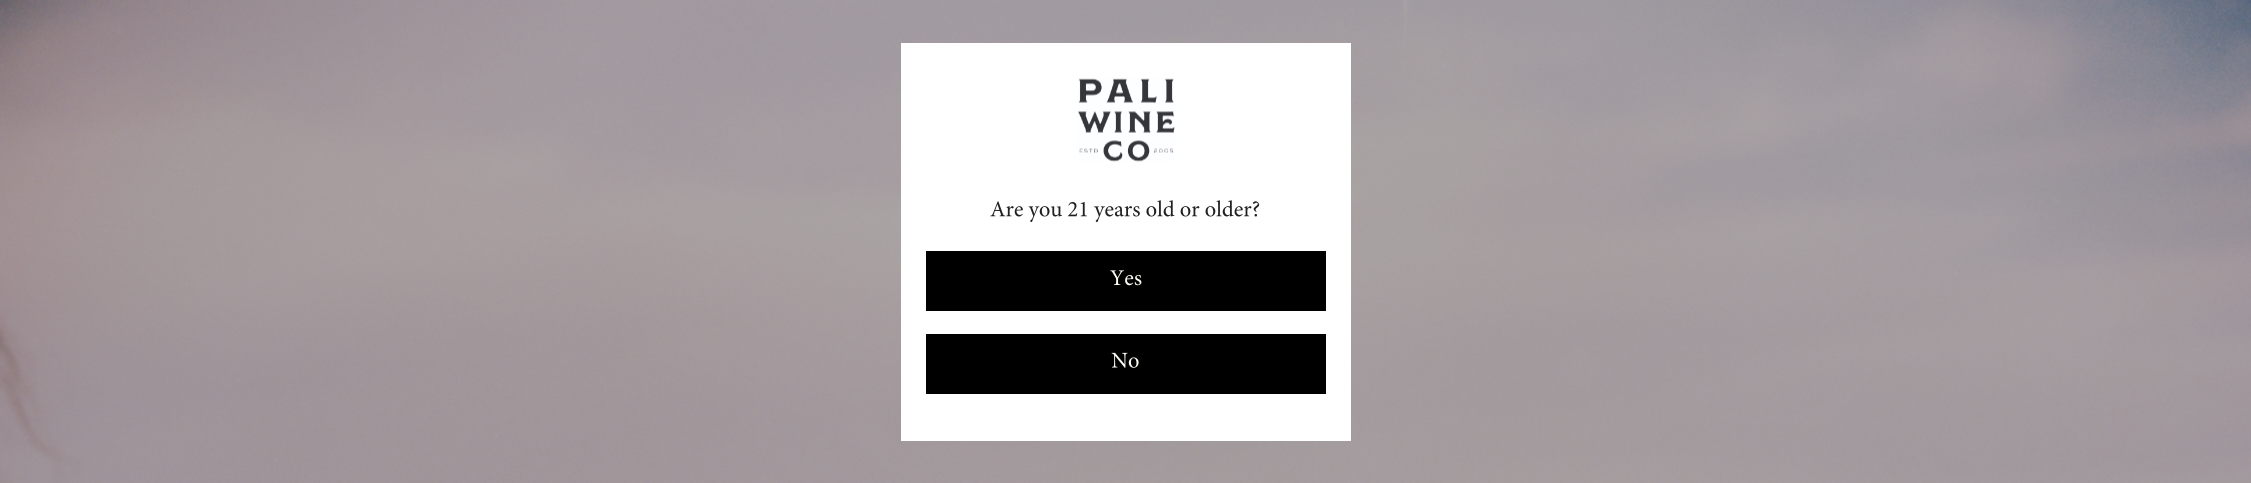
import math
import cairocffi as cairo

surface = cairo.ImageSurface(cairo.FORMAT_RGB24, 2251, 483)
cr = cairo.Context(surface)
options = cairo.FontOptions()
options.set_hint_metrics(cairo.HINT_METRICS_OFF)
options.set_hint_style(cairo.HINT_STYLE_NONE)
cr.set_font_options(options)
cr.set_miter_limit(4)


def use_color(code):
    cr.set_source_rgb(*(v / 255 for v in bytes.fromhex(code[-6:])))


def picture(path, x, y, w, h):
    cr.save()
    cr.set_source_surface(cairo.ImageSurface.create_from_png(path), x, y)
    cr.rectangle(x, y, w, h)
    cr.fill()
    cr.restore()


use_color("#ffffff")
cr.paint()
picture("img1.png", 0, 0, 2251, 483)
use_color("#ffffff")
cr.rectangle(901, 43, 450, 398)
cr.fill()
picture("img2.png", 1078, 78, 97, 84)
picture("img3.png", 990, 200, 270, 22)
use_color("#000000")
cr.rectangle(926, 251, 400, 60)
cr.fill()
picture("img4.png", 1110, 270, 32, 16)
cr.rectangle(926, 334, 400, 60)
cr.fill()
picture("img5.png", 1111, 352, 28, 16)
surface.write_to_png("result.png")
